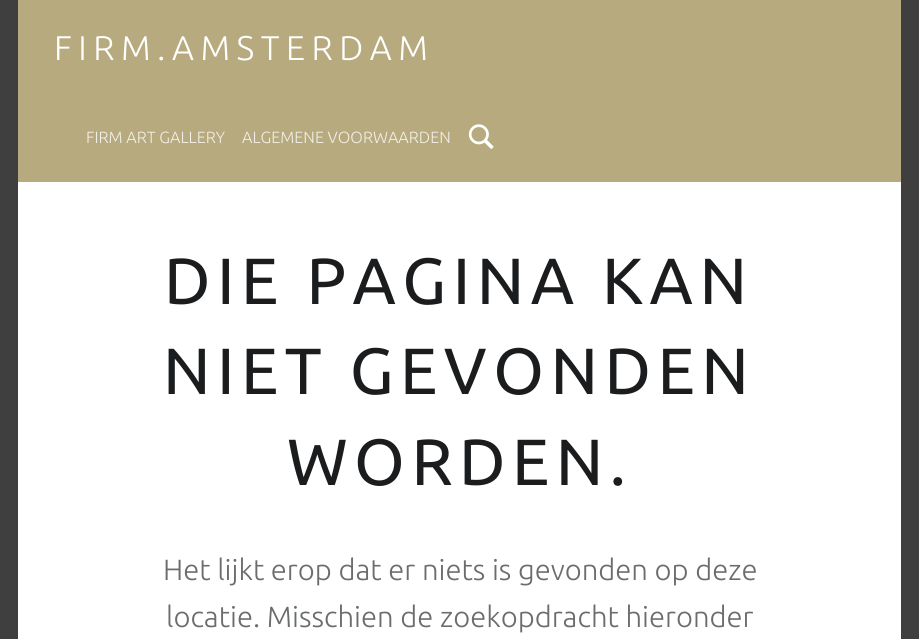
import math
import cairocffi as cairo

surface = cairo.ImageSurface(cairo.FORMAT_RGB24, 919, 639)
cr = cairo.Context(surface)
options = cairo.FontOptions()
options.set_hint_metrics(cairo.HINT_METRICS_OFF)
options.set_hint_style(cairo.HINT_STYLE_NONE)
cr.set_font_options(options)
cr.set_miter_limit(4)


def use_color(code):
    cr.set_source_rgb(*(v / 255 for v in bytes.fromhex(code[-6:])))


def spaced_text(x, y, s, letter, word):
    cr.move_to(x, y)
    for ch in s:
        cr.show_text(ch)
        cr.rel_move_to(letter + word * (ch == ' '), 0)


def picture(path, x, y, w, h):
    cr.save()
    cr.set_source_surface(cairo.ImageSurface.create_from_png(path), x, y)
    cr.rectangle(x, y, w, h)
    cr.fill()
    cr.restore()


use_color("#3f3f3f")
cr.paint()
use_color("#ffffff")
cr.rectangle(18, 182, 883, 457)
cr.fill()
use_color("#b7aa7e")
cr.rectangle(18, 0, 883, 182)
cr.fill()
cr.select_font_face("Ubuntu Light")
cr.set_font_size(34.25)
use_color("#ffffff")
spaced_text(54, 60, "FIRM.AMSTERDAM", 6.5, 0)
cr.set_font_size(16.25)
use_color("#f1eee5")
cr.move_to(86, 143)
cr.show_text("FIRM ART GALLERY")
cr.move_to(242, 143)
cr.show_text("ALGEMENE VOORWAARDEN")
picture("img1.png", 468, 124, 26, 26)
cr.select_font_face("Ubuntu")
cr.set_font_size(65.25)
use_color("#1a1c1e")
spaced_text(164, 304, "DIE PAGINA KAN", 6.5, 0)
spaced_text(163, 394, "NIET GEVONDEN", 6.5, 0)
spaced_text(287, 485, "WORDEN.", 6.5, 0)
cr.select_font_face("Ubuntu Light")
cr.set_font_size(29.2)
use_color("#6a6c6e")
cr.move_to(163, 580)
cr.show_text("Het lijkt erop dat er niets is gevonden op deze")
cr.move_to(166, 627)
cr.show_text("locatie. Misschien de zoekopdracht hieronder")
surface.write_to_png("result.png")
